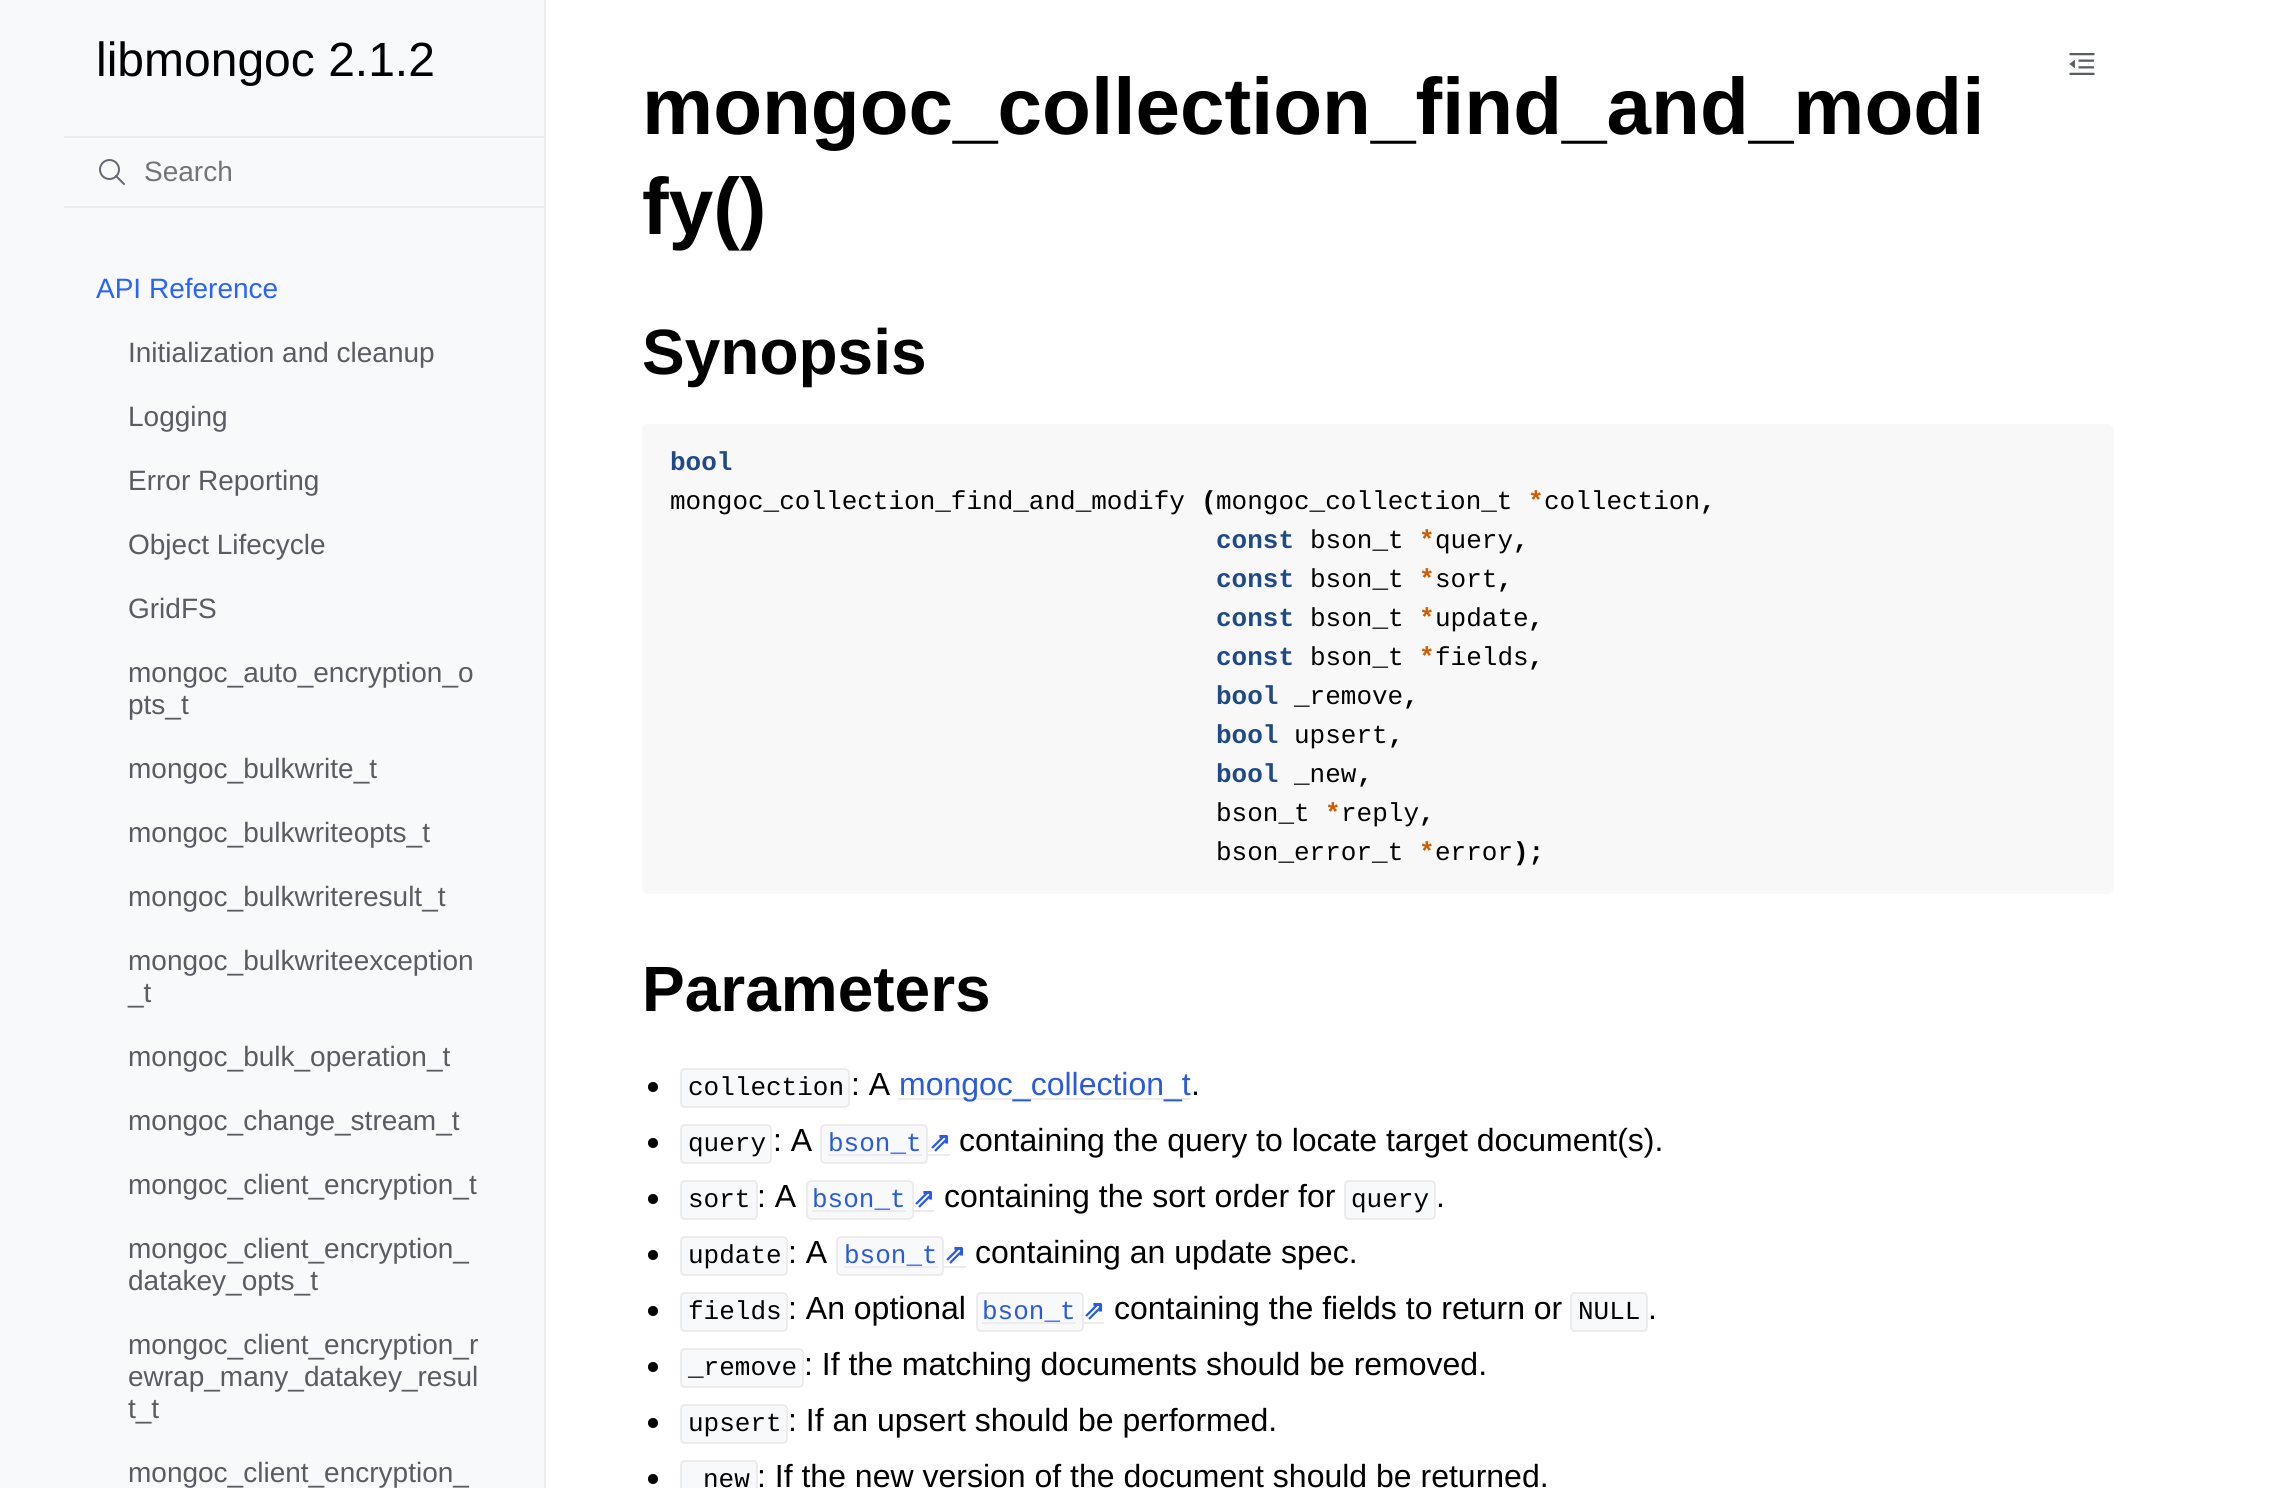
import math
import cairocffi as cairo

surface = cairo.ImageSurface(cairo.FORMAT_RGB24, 2276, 1488)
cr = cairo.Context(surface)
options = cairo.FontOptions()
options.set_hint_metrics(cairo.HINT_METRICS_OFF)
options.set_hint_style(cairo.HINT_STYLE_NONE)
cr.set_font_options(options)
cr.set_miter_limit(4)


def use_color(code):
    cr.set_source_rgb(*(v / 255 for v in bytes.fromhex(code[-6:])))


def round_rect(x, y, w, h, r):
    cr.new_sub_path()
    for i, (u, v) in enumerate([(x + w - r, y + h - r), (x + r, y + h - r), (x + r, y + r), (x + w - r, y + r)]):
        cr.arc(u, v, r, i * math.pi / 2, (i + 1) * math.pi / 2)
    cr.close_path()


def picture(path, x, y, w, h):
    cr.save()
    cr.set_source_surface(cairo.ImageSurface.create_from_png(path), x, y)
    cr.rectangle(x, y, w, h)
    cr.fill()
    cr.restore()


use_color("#ffffff")
cr.paint()
use_color("#f8f9fb")
cr.rectangle(0, 0, 544, 1488)
cr.fill()
use_color("#eeebee")
cr.rectangle(544, 0, 2, 1488)
cr.fill()
cr.select_font_face("Liberation Sans")
cr.set_font_size(48)
use_color("#000000")
cr.move_to(96, 76)
cr.show_text("libmongoc 2.1.2")
cr.new_path()
cr.arc(109.5, 169.5, 9.5, 0, 2 * math.pi)
use_color("#646776")
cr.stroke()
cr.new_path()
cr.move_to(124, 184)
cr.line_to(116, 176)
cr.set_line_cap(cairo.LINE_CAP_ROUND)
cr.set_line_join(cairo.LINE_JOIN_ROUND)
cr.stroke()
use_color("#eeebee")
cr.rectangle(64, 136, 480, 2)
cr.fill()
cr.rectangle(64, 206, 480, 2)
cr.fill()
cr.set_font_size(28)
use_color("#757575")
cr.move_to(144, 181)
cr.show_text("Search")
use_color("#2962ff")
cr.move_to(96, 298)
cr.show_text("API Reference")
use_color("#5a5c63")
cr.move_to(128, 362)
cr.show_text("Initialization and cleanup")
cr.move_to(128, 426)
cr.show_text("Logging")
cr.move_to(128, 490)
cr.show_text("Error Reporting")
cr.move_to(128, 554)
cr.show_text("Object Lifecycle")
cr.move_to(128, 618)
cr.show_text("GridFS")
cr.move_to(128, 682)
cr.show_text("mongoc_auto_encryption_o")
cr.move_to(128, 714)
cr.show_text("pts_t")
cr.move_to(128, 778)
cr.show_text("mongoc_bulkwrite_t")
cr.move_to(128, 842)
cr.show_text("mongoc_bulkwriteopts_t")
cr.move_to(128, 906)
cr.show_text("mongoc_bulkwriteresult_t")
cr.move_to(128, 970)
cr.show_text("mongoc_bulkwriteexception")
cr.move_to(128, 1002)
cr.show_text("_t")
cr.move_to(128, 1066)
cr.show_text("mongoc_bulk_operation_t")
cr.move_to(128, 1130)
cr.show_text("mongoc_change_stream_t")
cr.move_to(128, 1194)
cr.show_text("mongoc_client_encryption_t")
cr.move_to(128, 1258)
cr.show_text("mongoc_client_encryption_")
cr.move_to(128, 1290)
cr.show_text("datakey_opts_t")
cr.move_to(128, 1354)
cr.show_text("mongoc_client_encryption_r")
cr.move_to(128, 1386)
cr.show_text("ewrap_many_datakey_resul")
cr.move_to(128, 1418)
cr.show_text("t_t")
cr.move_to(128, 1482)
cr.show_text("mongoc_client_encryption_")
picture("img1.png", 2069, 53, 26, 22)
cr.select_font_face("Liberation Sans", cairo.FONT_SLANT_NORMAL, cairo.FONT_WEIGHT_BOLD)
cr.set_font_size(80)
use_color("#000000")
cr.move_to(642, 134)
cr.show_text("mongoc_collection_find_and_modi")
cr.move_to(642, 234)
cr.show_text("fy()")
cr.set_font_size(64)
cr.move_to(642, 374)
cr.show_text("Synopsis")
use_color("#f8f8f8")
round_rect(642, 424, 1472, 470, 6)
cr.fill()
cr.select_font_face("Liberation Mono", cairo.FONT_SLANT_NORMAL, cairo.FONT_WEIGHT_BOLD)
cr.set_font_size(26)
use_color("#204a87")
cr.move_to(670, 470)
cr.show_text("bool")
cr.select_font_face("Liberation Mono")
use_color("#000000")
cr.move_to(670, 509)
cr.show_text("mongoc_collection_find_and_modify")
cr.select_font_face("Liberation Mono", cairo.FONT_SLANT_NORMAL, cairo.FONT_WEIGHT_BOLD)
cr.move_to(1201, 509)
cr.show_text("(")
cr.select_font_face("Liberation Mono")
cr.move_to(1216, 509)
cr.show_text("mongoc_collection_t")
cr.select_font_face("Liberation Mono", cairo.FONT_SLANT_NORMAL, cairo.FONT_WEIGHT_BOLD)
use_color("#ce5c00")
cr.move_to(1528, 509)
cr.show_text("*")
cr.select_font_face("Liberation Mono")
use_color("#000000")
cr.move_to(1544, 509)
cr.show_text("collection")
cr.select_font_face("Liberation Mono", cairo.FONT_SLANT_NORMAL, cairo.FONT_WEIGHT_BOLD)
cr.move_to(1700, 509)
cr.show_text(",")
use_color("#204a87")
cr.move_to(1216, 548)
cr.show_text("const")
cr.select_font_face("Liberation Mono")
use_color("#000000")
cr.move_to(1310, 548)
cr.show_text("bson_t")
cr.select_font_face("Liberation Mono", cairo.FONT_SLANT_NORMAL, cairo.FONT_WEIGHT_BOLD)
use_color("#ce5c00")
cr.move_to(1419, 548)
cr.show_text("*")
cr.select_font_face("Liberation Mono")
use_color("#000000")
cr.move_to(1435, 548)
cr.show_text("query")
cr.select_font_face("Liberation Mono", cairo.FONT_SLANT_NORMAL, cairo.FONT_WEIGHT_BOLD)
cr.move_to(1513, 548)
cr.show_text(",")
use_color("#204a87")
cr.move_to(1216, 587)
cr.show_text("const")
cr.select_font_face("Liberation Mono")
use_color("#000000")
cr.move_to(1310, 587)
cr.show_text("bson_t")
cr.select_font_face("Liberation Mono", cairo.FONT_SLANT_NORMAL, cairo.FONT_WEIGHT_BOLD)
use_color("#ce5c00")
cr.move_to(1419, 587)
cr.show_text("*")
cr.select_font_face("Liberation Mono")
use_color("#000000")
cr.move_to(1435, 587)
cr.show_text("sort")
cr.select_font_face("Liberation Mono", cairo.FONT_SLANT_NORMAL, cairo.FONT_WEIGHT_BOLD)
cr.move_to(1497, 587)
cr.show_text(",")
use_color("#204a87")
cr.move_to(1216, 626)
cr.show_text("const")
cr.select_font_face("Liberation Mono")
use_color("#000000")
cr.move_to(1310, 626)
cr.show_text("bson_t")
cr.select_font_face("Liberation Mono", cairo.FONT_SLANT_NORMAL, cairo.FONT_WEIGHT_BOLD)
use_color("#ce5c00")
cr.move_to(1419, 626)
cr.show_text("*")
cr.select_font_face("Liberation Mono")
use_color("#000000")
cr.move_to(1435, 626)
cr.show_text("update")
cr.select_font_face("Liberation Mono", cairo.FONT_SLANT_NORMAL, cairo.FONT_WEIGHT_BOLD)
cr.move_to(1528, 626)
cr.show_text(",")
use_color("#204a87")
cr.move_to(1216, 665)
cr.show_text("const")
cr.select_font_face("Liberation Mono")
use_color("#000000")
cr.move_to(1310, 665)
cr.show_text("bson_t")
cr.select_font_face("Liberation Mono", cairo.FONT_SLANT_NORMAL, cairo.FONT_WEIGHT_BOLD)
use_color("#ce5c00")
cr.move_to(1419, 665)
cr.show_text("*")
cr.select_font_face("Liberation Mono")
use_color("#000000")
cr.move_to(1435, 665)
cr.show_text("fields")
cr.select_font_face("Liberation Mono", cairo.FONT_SLANT_NORMAL, cairo.FONT_WEIGHT_BOLD)
cr.move_to(1528, 665)
cr.show_text(",")
use_color("#204a87")
cr.move_to(1216, 704)
cr.show_text("bool")
cr.select_font_face("Liberation Mono")
use_color("#000000")
cr.move_to(1294, 704)
cr.show_text("_remove")
cr.select_font_face("Liberation Mono", cairo.FONT_SLANT_NORMAL, cairo.FONT_WEIGHT_BOLD)
cr.move_to(1403, 704)
cr.show_text(",")
use_color("#204a87")
cr.move_to(1216, 743)
cr.show_text("bool")
cr.select_font_face("Liberation Mono")
use_color("#000000")
cr.move_to(1294, 743)
cr.show_text("upsert")
cr.select_font_face("Liberation Mono", cairo.FONT_SLANT_NORMAL, cairo.FONT_WEIGHT_BOLD)
cr.move_to(1388, 743)
cr.show_text(",")
use_color("#204a87")
cr.move_to(1216, 782)
cr.show_text("bool")
cr.select_font_face("Liberation Mono")
use_color("#000000")
cr.move_to(1294, 782)
cr.show_text("_new")
cr.select_font_face("Liberation Mono", cairo.FONT_SLANT_NORMAL, cairo.FONT_WEIGHT_BOLD)
cr.move_to(1357, 782)
cr.show_text(",")
cr.select_font_face("Liberation Mono")
cr.move_to(1216, 821)
cr.show_text("bson_t")
cr.select_font_face("Liberation Mono", cairo.FONT_SLANT_NORMAL, cairo.FONT_WEIGHT_BOLD)
use_color("#ce5c00")
cr.move_to(1325, 821)
cr.show_text("*")
cr.select_font_face("Liberation Mono")
use_color("#000000")
cr.move_to(1341, 821)
cr.show_text("reply")
cr.select_font_face("Liberation Mono", cairo.FONT_SLANT_NORMAL, cairo.FONT_WEIGHT_BOLD)
cr.move_to(1419, 821)
cr.show_text(",")
cr.select_font_face("Liberation Mono")
cr.move_to(1216, 860)
cr.show_text("bson_error_t")
cr.select_font_face("Liberation Mono", cairo.FONT_SLANT_NORMAL, cairo.FONT_WEIGHT_BOLD)
use_color("#ce5c00")
cr.move_to(1419, 860)
cr.show_text("*")
cr.select_font_face("Liberation Mono")
use_color("#000000")
cr.move_to(1435, 860)
cr.show_text("error")
cr.select_font_face("Liberation Mono", cairo.FONT_SLANT_NORMAL, cairo.FONT_WEIGHT_BOLD)
cr.move_to(1513, 860)
cr.show_text(");")
cr.select_font_face("Liberation Sans", cairo.FONT_SLANT_NORMAL, cairo.FONT_WEIGHT_BOLD)
cr.set_font_size(64)
cr.move_to(642, 1011)
cr.show_text("Parameters")
cr.new_path()
cr.arc(653, 1087, 5, 0, 2 * math.pi)
cr.fill()
use_color("#f8f9fb")
round_rect(681, 1069, 168, 38, 4)
cr.fill_preserve()
use_color("#eeebee")
cr.set_line_cap(cairo.LINE_CAP_BUTT)
cr.set_line_join(cairo.LINE_JOIN_MITER)
cr.stroke()
cr.select_font_face("Liberation Mono")
cr.set_font_size(26)
use_color("#000000")
cr.move_to(688, 1095)
cr.show_text("collection")
cr.select_font_face("Liberation Sans")
cr.set_font_size(32)
cr.move_to(851, 1095)
cr.show_text(": A")
use_color("#eeebee")
cr.rectangle(898, 1098, 292, 2)
cr.fill()
use_color("#2a5adf")
cr.move_to(899, 1095)
cr.show_text("mongoc_collection_t")
use_color("#000000")
cr.move_to(1191, 1095)
cr.show_text(".")
cr.new_path()
cr.arc(653, 1143, 5, 0, 2 * math.pi)
cr.fill()
use_color("#f8f9fb")
round_rect(681, 1125, 90, 38, 4)
cr.fill_preserve()
use_color("#eeebee")
cr.stroke()
cr.select_font_face("Liberation Mono")
cr.set_font_size(26)
use_color("#000000")
cr.move_to(688, 1151)
cr.show_text("query")
cr.select_font_face("Liberation Sans")
cr.set_font_size(32)
cr.move_to(773, 1151)
cr.show_text(": A")
use_color("#f8f9fb")
round_rect(821, 1125, 106, 38, 4)
cr.fill_preserve()
use_color("#eeebee")
cr.stroke()
cr.select_font_face("Liberation Mono")
cr.set_font_size(26)
use_color("#2a5adf")
cr.move_to(828, 1151)
cr.show_text("bson_t")
use_color("#eeebee")
cr.rectangle(828, 1154, 94, 2)
cr.fill()
cr.select_font_face("DejaVu Sans", cairo.FONT_SLANT_NORMAL, cairo.FONT_WEIGHT_BOLD)
use_color("#2a5adf")
cr.move_to(929, 1151)
cr.show_text("⇗")
use_color("#eeebee")
cr.rectangle(928, 1154, 22, 2)
cr.fill()
cr.select_font_face("Liberation Sans")
cr.set_font_size(32)
use_color("#000000")
cr.move_to(959, 1151)
cr.show_text("containing the query to locate target document(s).")
cr.new_path()
cr.arc(653, 1199, 5, 0, 2 * math.pi)
cr.fill()
use_color("#f8f9fb")
round_rect(681, 1181, 76, 38, 4)
cr.fill_preserve()
use_color("#eeebee")
cr.stroke()
cr.select_font_face("Liberation Mono")
cr.set_font_size(26)
use_color("#000000")
cr.move_to(688, 1207)
cr.show_text("sort")
cr.select_font_face("Liberation Sans")
cr.set_font_size(32)
cr.move_to(757, 1207)
cr.show_text(": A")
use_color("#f8f9fb")
round_rect(807, 1181, 106, 38, 4)
cr.fill_preserve()
use_color("#eeebee")
cr.stroke()
cr.select_font_face("Liberation Mono")
cr.set_font_size(26)
use_color("#2a5adf")
cr.move_to(812, 1207)
cr.show_text("bson_t")
use_color("#eeebee")
cr.rectangle(812, 1210, 94, 2)
cr.fill()
cr.select_font_face("DejaVu Sans", cairo.FONT_SLANT_NORMAL, cairo.FONT_WEIGHT_BOLD)
use_color("#2a5adf")
cr.move_to(913, 1207)
cr.show_text("⇗")
use_color("#eeebee")
cr.rectangle(914, 1210, 20, 2)
cr.fill()
cr.select_font_face("Liberation Sans")
cr.set_font_size(32)
use_color("#000000")
cr.move_to(944, 1207)
cr.show_text("containing the sort order for")
use_color("#f8f9fb")
round_rect(1345, 1181, 90, 38, 4)
cr.fill_preserve()
use_color("#eeebee")
cr.stroke()
cr.select_font_face("Liberation Mono")
cr.set_font_size(26)
use_color("#000000")
cr.move_to(1351, 1207)
cr.show_text("query")
cr.select_font_face("Liberation Sans")
cr.set_font_size(32)
cr.move_to(1436, 1207)
cr.show_text(".")
cr.new_path()
cr.arc(653, 1255, 5, 0, 2 * math.pi)
cr.fill()
use_color("#f8f9fb")
round_rect(681, 1237, 106, 38, 4)
cr.fill_preserve()
use_color("#eeebee")
cr.stroke()
cr.select_font_face("Liberation Mono")
cr.set_font_size(26)
use_color("#000000")
cr.move_to(688, 1263)
cr.show_text("update")
cr.select_font_face("Liberation Sans")
cr.set_font_size(32)
cr.move_to(788, 1263)
cr.show_text(": A")
use_color("#f8f9fb")
round_rect(837, 1237, 106, 38, 4)
cr.fill_preserve()
use_color("#eeebee")
cr.stroke()
cr.select_font_face("Liberation Mono")
cr.set_font_size(26)
use_color("#2a5adf")
cr.move_to(844, 1263)
cr.show_text("bson_t")
use_color("#eeebee")
cr.rectangle(844, 1266, 94, 2)
cr.fill()
cr.select_font_face("DejaVu Sans", cairo.FONT_SLANT_NORMAL, cairo.FONT_WEIGHT_BOLD)
use_color("#2a5adf")
cr.move_to(944, 1263)
cr.show_text("⇗")
use_color("#eeebee")
cr.rectangle(944, 1266, 22, 2)
cr.fill()
cr.select_font_face("Liberation Sans")
cr.set_font_size(32)
use_color("#000000")
cr.move_to(975, 1263)
cr.show_text("containing an update spec.")
cr.new_path()
cr.arc(653, 1311, 5, 0, 2 * math.pi)
cr.fill()
use_color("#f8f9fb")
round_rect(681, 1293, 106, 38, 4)
cr.fill_preserve()
use_color("#eeebee")
cr.stroke()
cr.select_font_face("Liberation Mono")
cr.set_font_size(26)
use_color("#000000")
cr.move_to(688, 1319)
cr.show_text("fields")
cr.select_font_face("Liberation Sans")
cr.set_font_size(32)
cr.move_to(788, 1319)
cr.show_text(": An optional")
use_color("#f8f9fb")
round_rect(977, 1293, 106, 38, 4)
cr.fill_preserve()
use_color("#eeebee")
cr.stroke()
cr.select_font_face("Liberation Mono")
cr.set_font_size(26)
use_color("#2a5adf")
cr.move_to(982, 1319)
cr.show_text("bson_t")
use_color("#eeebee")
cr.rectangle(982, 1322, 94, 2)
cr.fill()
cr.select_font_face("DejaVu Sans", cairo.FONT_SLANT_NORMAL, cairo.FONT_WEIGHT_BOLD)
use_color("#2a5adf")
cr.move_to(1083, 1319)
cr.show_text("⇗")
use_color("#eeebee")
cr.rectangle(1084, 1322, 20, 2)
cr.fill()
cr.select_font_face("Liberation Sans")
cr.set_font_size(32)
use_color("#000000")
cr.move_to(1114, 1319)
cr.show_text("containing the fields to return or")
use_color("#f8f9fb")
round_rect(1571, 1293, 76, 38, 4)
cr.fill_preserve()
use_color("#eeebee")
cr.stroke()
cr.select_font_face("Liberation Mono")
cr.set_font_size(26)
use_color("#000000")
cr.move_to(1578, 1319)
cr.show_text("NULL")
cr.select_font_face("Liberation Sans")
cr.set_font_size(32)
cr.move_to(1648, 1319)
cr.show_text(".")
cr.new_path()
cr.arc(653, 1367, 5, 0, 2 * math.pi)
cr.fill()
use_color("#f8f9fb")
round_rect(681, 1349, 122, 38, 4)
cr.fill_preserve()
use_color("#eeebee")
cr.stroke()
cr.select_font_face("Liberation Mono")
cr.set_font_size(26)
use_color("#000000")
cr.move_to(688, 1375)
cr.show_text("_remove")
cr.select_font_face("Liberation Sans")
cr.set_font_size(32)
cr.move_to(804, 1375)
cr.show_text(": If the matching documents should be removed.")
cr.new_path()
cr.arc(653, 1423, 5, 0, 2 * math.pi)
cr.fill()
use_color("#f8f9fb")
round_rect(681, 1405, 106, 38, 4)
cr.fill_preserve()
use_color("#eeebee")
cr.stroke()
cr.select_font_face("Liberation Mono")
cr.set_font_size(26)
use_color("#000000")
cr.move_to(688, 1431)
cr.show_text("upsert")
cr.select_font_face("Liberation Sans")
cr.set_font_size(32)
cr.move_to(788, 1431)
cr.show_text(": If an upsert should be performed.")
cr.new_path()
cr.arc(653, 1479, 5, 0, 2 * math.pi)
cr.fill()
use_color("#f8f9fb")
round_rect(681, 1461, 76, 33, 4)
cr.fill_preserve()
use_color("#eeebee")
cr.stroke()
cr.select_font_face("Liberation Mono")
cr.set_font_size(26)
use_color("#000000")
cr.move_to(703, 1487)
cr.show_text("new")
cr.select_font_face("Liberation Sans")
cr.set_font_size(32)
cr.move_to(757, 1487)
cr.show_text(": If the new version of the document should be returned.")
surface.write_to_png("result.png")
